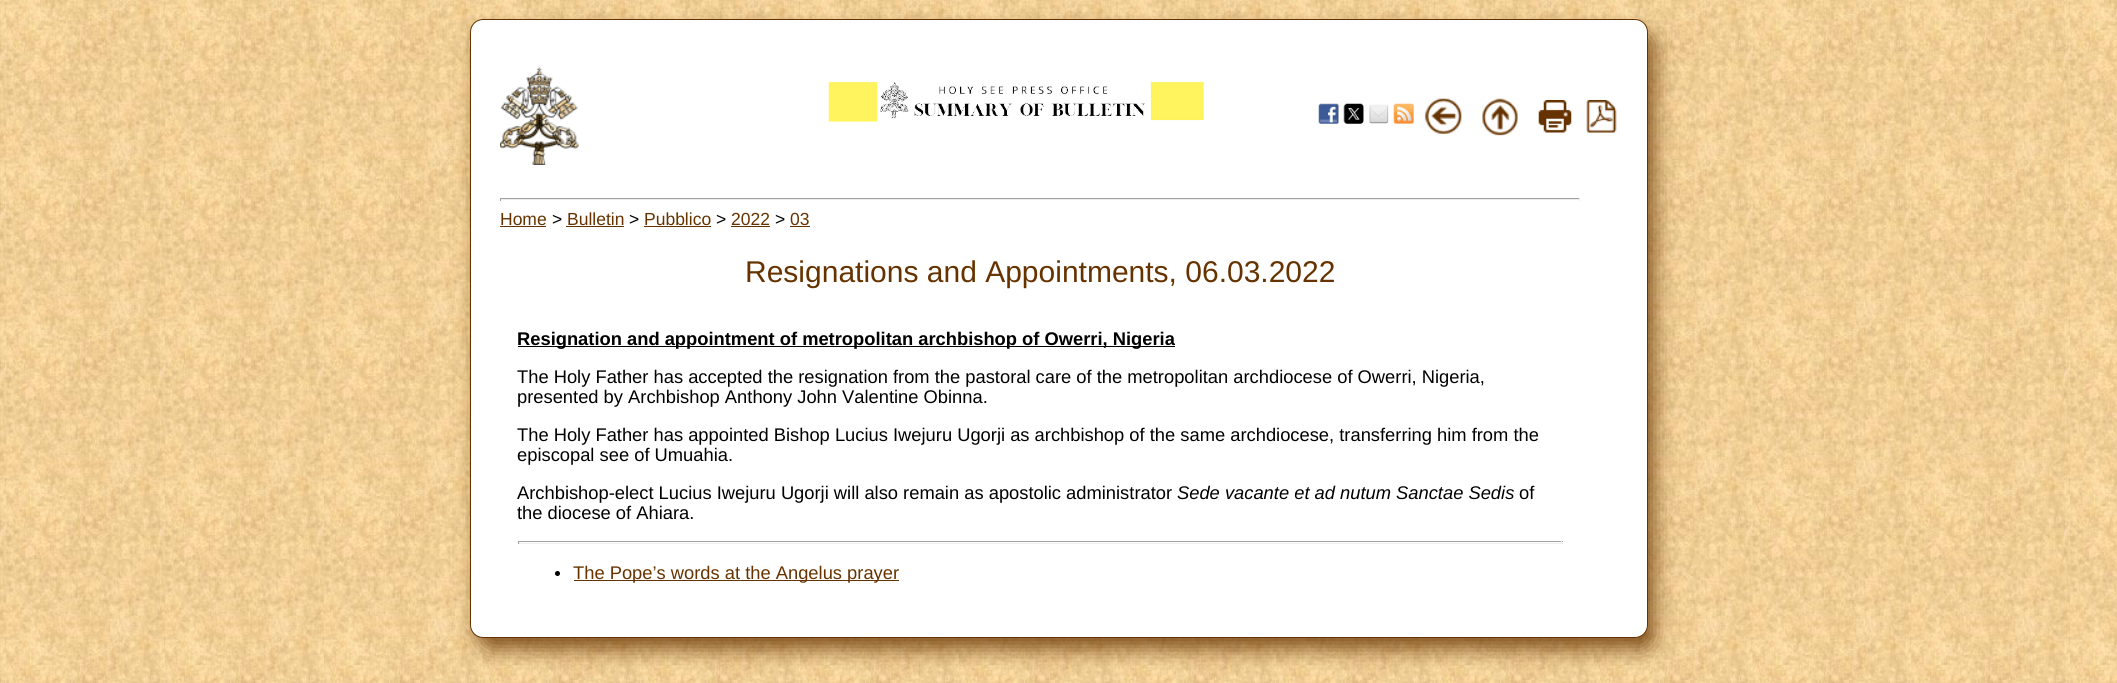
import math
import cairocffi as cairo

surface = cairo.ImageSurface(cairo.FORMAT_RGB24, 2117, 683)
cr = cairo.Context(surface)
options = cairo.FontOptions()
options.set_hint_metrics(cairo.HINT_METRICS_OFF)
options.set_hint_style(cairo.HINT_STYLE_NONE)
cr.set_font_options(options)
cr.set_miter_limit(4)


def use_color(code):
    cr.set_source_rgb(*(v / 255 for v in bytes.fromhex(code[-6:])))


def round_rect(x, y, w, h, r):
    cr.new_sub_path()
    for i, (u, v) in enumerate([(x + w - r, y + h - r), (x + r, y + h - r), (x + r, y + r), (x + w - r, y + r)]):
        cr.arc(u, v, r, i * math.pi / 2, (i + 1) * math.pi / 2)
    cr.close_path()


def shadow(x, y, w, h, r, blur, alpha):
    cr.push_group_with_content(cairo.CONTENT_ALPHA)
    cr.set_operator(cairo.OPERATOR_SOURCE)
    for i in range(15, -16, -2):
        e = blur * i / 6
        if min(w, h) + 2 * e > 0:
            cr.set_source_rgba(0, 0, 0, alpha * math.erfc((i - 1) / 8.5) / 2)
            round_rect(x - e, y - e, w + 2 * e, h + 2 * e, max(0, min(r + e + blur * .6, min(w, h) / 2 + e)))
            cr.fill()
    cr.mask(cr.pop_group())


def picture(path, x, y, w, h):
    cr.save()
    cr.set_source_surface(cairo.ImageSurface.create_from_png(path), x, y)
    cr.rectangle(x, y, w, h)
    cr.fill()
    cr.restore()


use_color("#ffffff")
cr.paint()
picture("img1.png", 0, 0, 2117, 683)
use_color("#663300")
shadow(478, 31, 1177, 619, 13, 10.5, 0.8)
use_color("#ffffff")
round_rect(470.5, 19.5, 1177, 618, 12.5)
cr.fill_preserve()
use_color("#663300")
cr.set_line_width(1)
cr.stroke()
picture("img2.png", 500, 67, 79, 98)
picture("img3.png", 828, 81, 376, 42)
picture("img4.png", 1318, 103, 21, 21)
picture("img5.png", 1343, 103, 21, 21)
picture("img6.png", 1369, 104, 20, 20)
picture("img7.png", 1393, 103, 21, 21)
picture("img8.png", 1424, 98, 38, 36)
picture("img9.png", 1482, 98, 36, 38)
picture("img10.png", 1538, 100, 34, 33)
picture("img11.png", 1586, 100, 31, 33)
use_color("#9f9f9f")
cr.rectangle(500, 198, 1080, 1)
cr.fill()
use_color("#eeeeee")
cr.rectangle(1579, 198, 1, 3)
cr.fill()
cr.rectangle(500, 199, 1080, 1)
cr.fill()
use_color("#9f9f9f")
cr.rectangle(500, 198, 1, 3)
cr.fill()
cr.select_font_face("Liberation Sans")
cr.set_font_size(17.5)
use_color("#663300")
cr.move_to(500, 225)
cr.show_text("Home")
cr.rectangle(500, 226, 46, 1)
cr.fill()
use_color("#000000")
cr.move_to(552, 225)
cr.show_text(">")
use_color("#663300")
cr.move_to(567, 225)
cr.show_text("Bulletin")
cr.rectangle(566, 226, 58, 1)
cr.fill()
use_color("#000000")
cr.move_to(629, 225)
cr.show_text(">")
use_color("#663300")
cr.move_to(644, 225)
cr.show_text("Pubblico")
cr.rectangle(644, 226, 67, 1)
cr.fill()
use_color("#000000")
cr.move_to(716, 225)
cr.show_text(">")
use_color("#663300")
cr.move_to(731, 225)
cr.show_text("2022")
cr.rectangle(731, 226, 39, 1)
cr.fill()
use_color("#000000")
cr.move_to(775, 225)
cr.show_text(">")
use_color("#663300")
cr.move_to(790, 225)
cr.show_text("03")
cr.rectangle(790, 226, 20, 1)
cr.fill()
cr.set_font_size(30)
cr.move_to(745, 282)
cr.show_text("Resignations and Appointments, 06.03.2022")
use_color("#000000")
cr.rectangle(518, 346, 657, 1)
cr.fill()
cr.select_font_face("Liberation Sans", cairo.FONT_SLANT_NORMAL, cairo.FONT_WEIGHT_BOLD)
cr.set_font_size(18.33)
cr.move_to(517, 345)
cr.show_text("Resignation and appointment of metropolitan archbishop of Owerri, Nigeria")
cr.select_font_face("Liberation Sans")
cr.move_to(517, 383)
cr.show_text("The Holy Father has accepted the resignation from the pastoral care of the metropolitan archdiocese of Owerri, Nigeria,")
cr.move_to(517, 403)
cr.show_text("presented by Archbishop Anthony John Valentine Obinna.")
cr.move_to(517, 441)
cr.show_text("The Holy Father has appointed Bishop Lucius Iwejuru Ugorji as archbishop of the same archdiocese, transferring him from the")
cr.move_to(517, 461)
cr.show_text("episcopal see of Umuahia.")
cr.move_to(517, 499)
cr.show_text("Archbishop-elect Lucius Iwejuru Ugorji will also remain as apostolic administrator")
cr.select_font_face("Liberation Sans", cairo.FONT_SLANT_ITALIC)
cr.move_to(1177, 499)
cr.show_text("Sede vacante et ad nutum Sanctae Sedis")
cr.select_font_face("Liberation Sans")
cr.move_to(1519, 499)
cr.show_text("of")
cr.move_to(517, 519)
cr.show_text("the diocese of Ahiara.")
use_color("#9f9f9f")
cr.rectangle(518, 541, 1045, 1)
cr.fill()
use_color("#eeeeee")
cr.rectangle(1561, 541, 1, 3)
cr.fill()
cr.rectangle(518, 543, 1045, 1)
cr.fill()
use_color("#9f9f9f")
cr.rectangle(518, 541, 1, 3)
cr.fill()
use_color("#000000")
cr.arc(557.5, 573.5, 2.5, 0, 2 * math.pi)
cr.fill()
use_color("#663300")
cr.rectangle(574, 580, 325, 1)
cr.fill()
cr.move_to(573, 579)
cr.show_text("The Pope’s words at the Angelus prayer")
surface.write_to_png("result.png")
